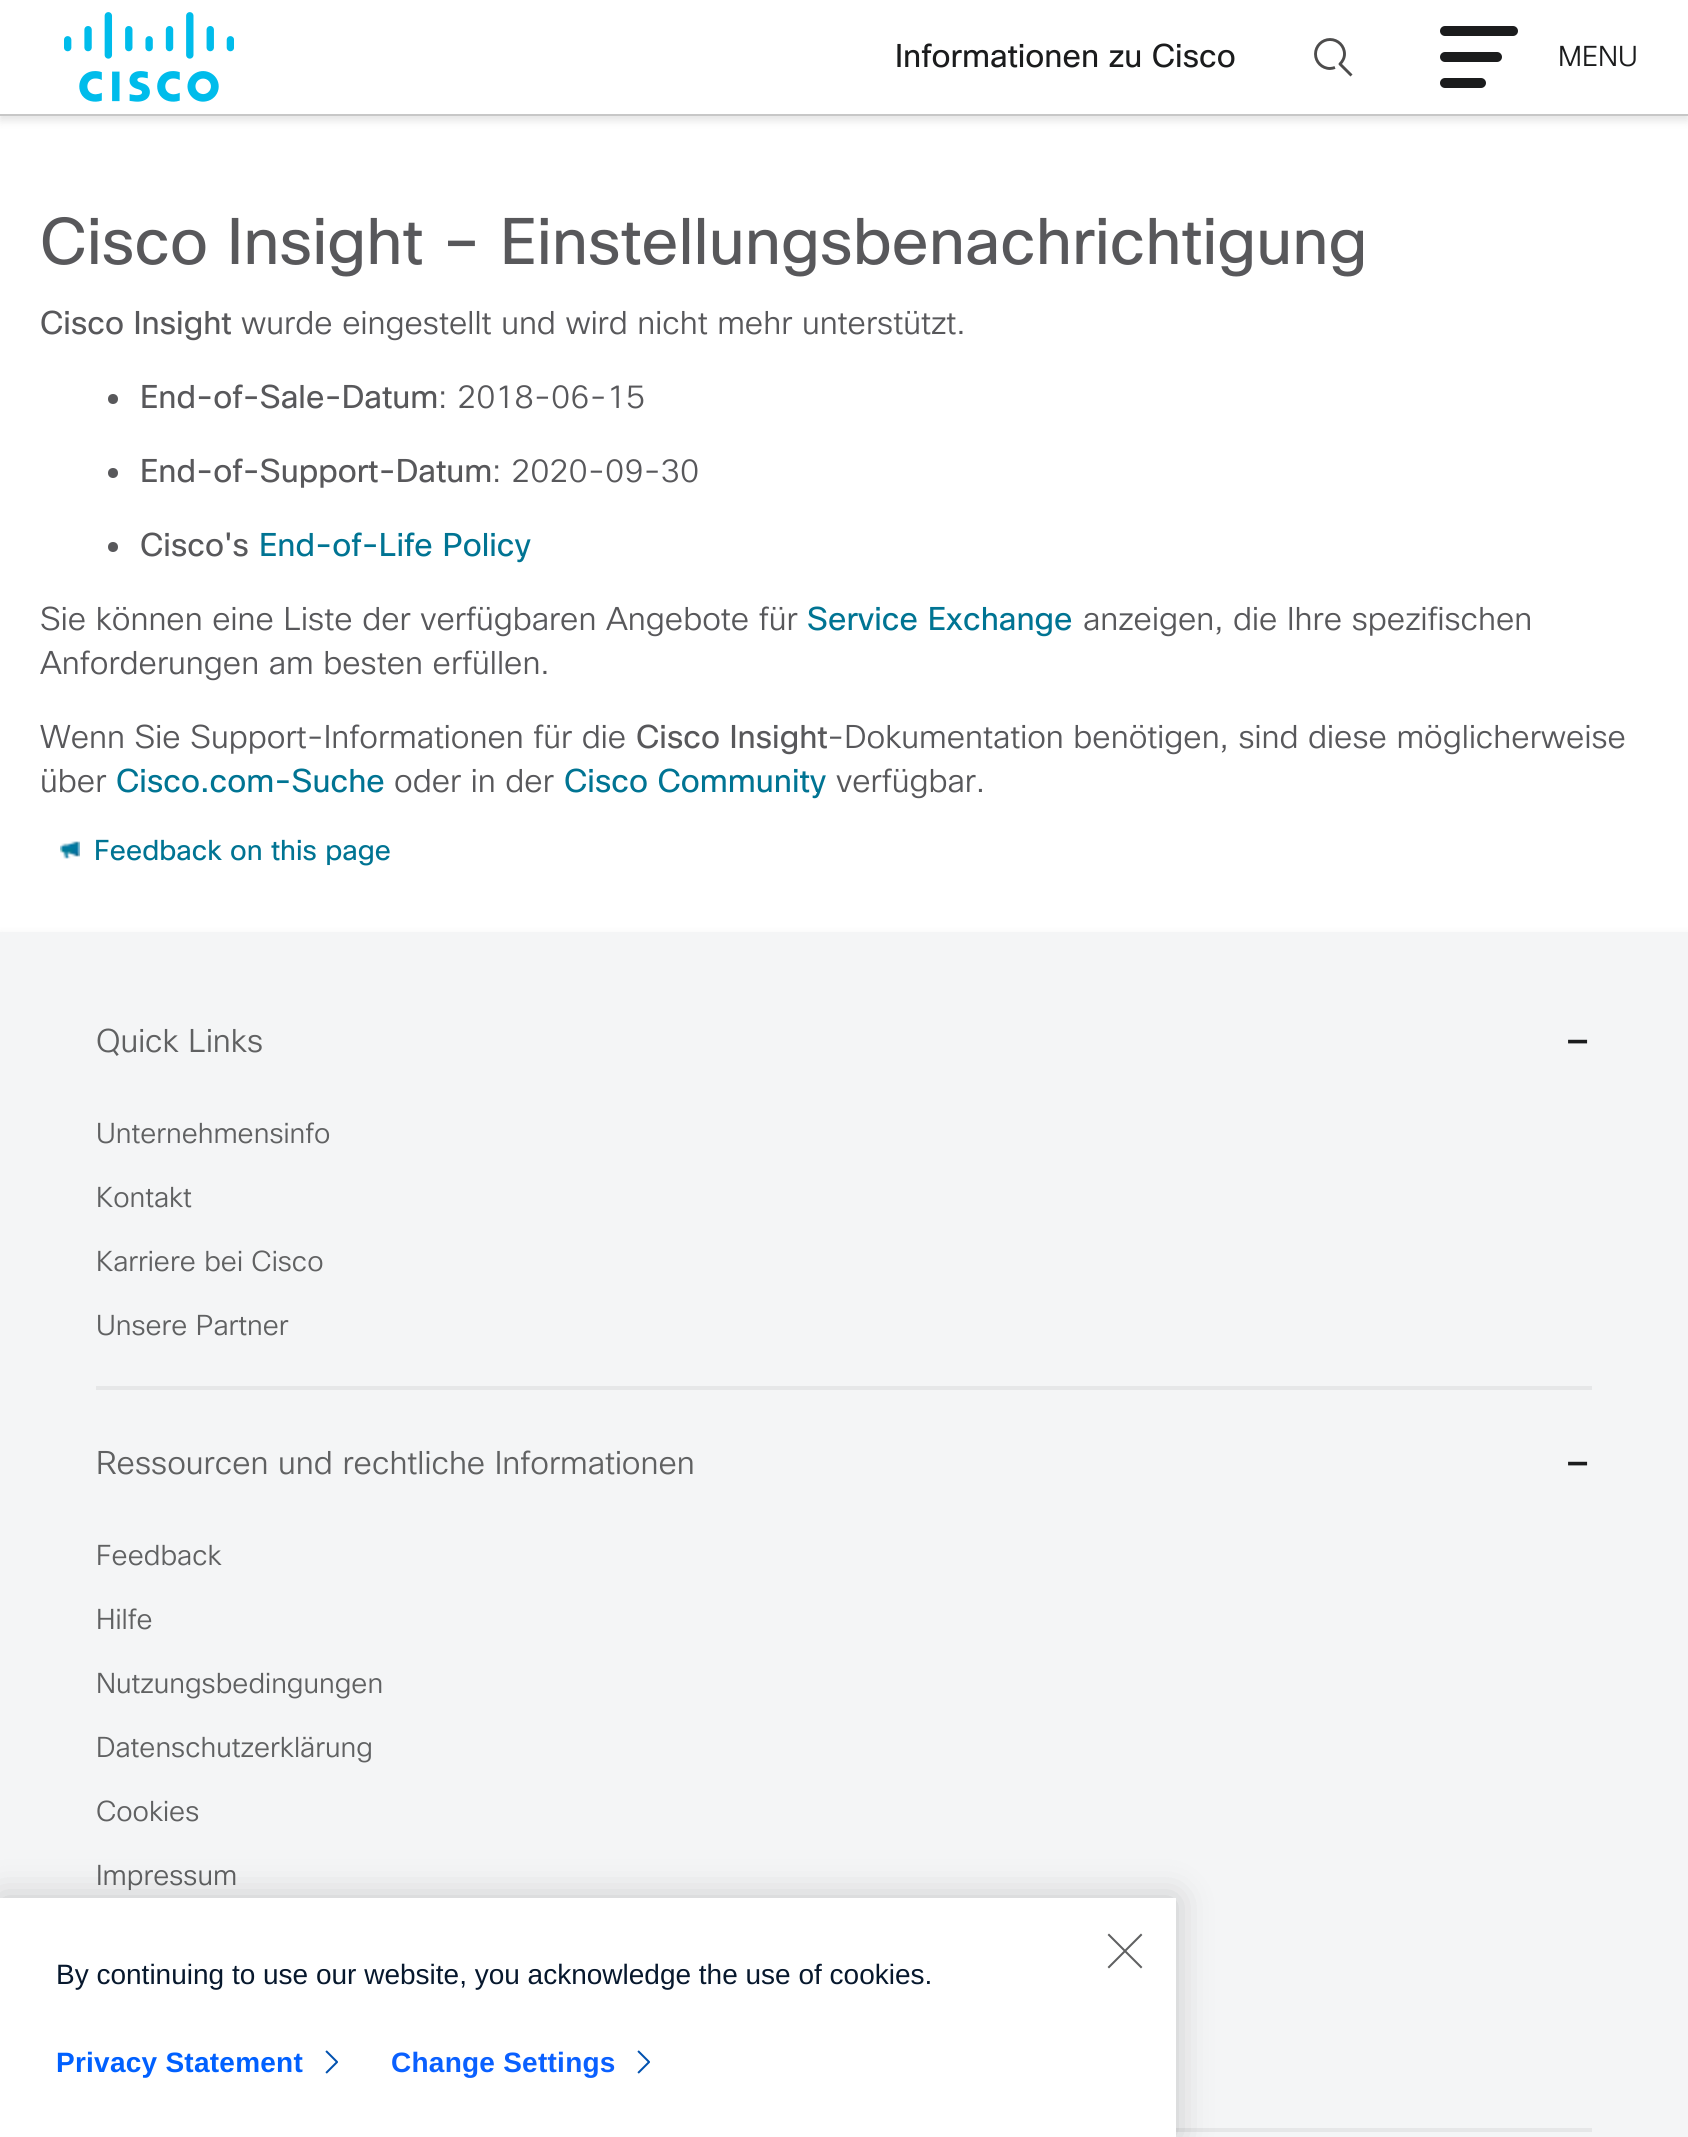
import math
import cairocffi as cairo

surface = cairo.ImageSurface(cairo.FORMAT_RGB24, 1688, 2137)
cr = cairo.Context(surface)
options = cairo.FontOptions()
options.set_hint_metrics(cairo.HINT_METRICS_OFF)
options.set_hint_style(cairo.HINT_STYLE_NONE)
cr.set_font_options(options)
cr.set_miter_limit(4)


def use_color(code):
    cr.set_source_rgb(*(v / 255 for v in bytes.fromhex(code[-6:])))


def spaced_text(x, y, s, letter, word):
    cr.move_to(x, y)
    for ch in s:
        cr.show_text(ch)
        cr.rel_move_to(letter + word * (ch == ' '), 0)


def round_rect(x, y, w, h, r):
    cr.new_sub_path()
    for i, (u, v) in enumerate([(x + w - r, y + h - r), (x + r, y + h - r), (x + r, y + r), (x + w - r, y + r)]):
        cr.arc(u, v, r, i * math.pi / 2, (i + 1) * math.pi / 2)
    cr.close_path()


def shadow(x, y, w, h, r, blur, alpha):
    cr.push_group_with_content(cairo.CONTENT_ALPHA)
    cr.set_operator(cairo.OPERATOR_SOURCE)
    for i in range(15, -16, -2):
        e = blur * i / 6
        if min(w, h) + 2 * e > 0:
            cr.set_source_rgba(0, 0, 0, alpha * math.erfc((i - 1) / 8.5) / 2)
            round_rect(x - e, y - e, w + 2 * e, h + 2 * e, max(0, min(r + e + blur * .6, min(w, h) / 2 + e)))
            cr.fill()
    cr.mask(cr.pop_group())


def picture(path, x, y, w, h):
    cr.save()
    cr.set_source_surface(cairo.ImageSurface.create_from_png(path), x, y)
    cr.rectangle(x, y, w, h)
    cr.fill()
    cr.restore()


use_color("#ffffff")
cr.paint()
use_color("#000000")
shadow(0, 4, 1688, 116, 0, 5, 0.12)
use_color("#ffffff")
cr.rectangle(0, 0, 1688, 114)
cr.fill()
use_color("#c7c7c7")
cr.rectangle(0, 114, 1688, 2)
cr.fill()
picture("img1.png", 64, 12, 170, 90)
cr.select_font_face("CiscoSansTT")
cr.set_font_size(32)
use_color("#1b1c1d")
cr.move_to(895, 67)
cr.show_text("Informationen zu Cisco")
cr.new_path()
cr.move_to(1335, 67.5)
cr.curve_to(1333.5, 68, 1331.5, 68.5, 1330, 68.5)
cr.curve_to(1322, 68.5, 1315.5, 62, 1315.5, 54)
cr.curve_to(1315.5, 46, 1322, 39.5, 1330, 39.5)
cr.curve_to(1338, 39.5, 1344.5, 46, 1344.5, 54)
cr.curve_to(1344.5, 58, 1342.5, 61.5, 1340, 64)
cr.line_to(1351.5, 75.5)
use_color("#4d4c4c")
cr.set_line_width(2.9)
cr.set_line_join(cairo.LINE_JOIN_ROUND)
cr.stroke()
use_color("#1b1c1d")
round_rect(1440, 26, 78, 10, 5)
cr.fill()
round_rect(1440, 52, 62, 10, 5)
cr.fill()
round_rect(1440, 78, 46, 10, 5)
cr.fill()
cr.select_font_face("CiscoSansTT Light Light")
cr.set_font_size(28)
cr.move_to(1558, 66)
cr.show_text("MENU")
cr.select_font_face("CiscoSansTT")
cr.set_font_size(64)
use_color("#58585b")
cr.move_to(40, 264)
cr.show_text("Cisco Insight – Einstellungsbenachrichtigung")
cr.set_font_size(32)
cr.move_to(40, 334)
cr.show_text("Cisco Insight")
cr.select_font_face("CiscoSansTT Light Light")
cr.move_to(241, 334)
cr.show_text("wurde eingestellt und wird nicht mehr unterstützt.")
cr.new_path()
cr.arc(113, 399, 5, 0, 2 * math.pi)
cr.fill()
cr.select_font_face("CiscoSansTT")
cr.move_to(140, 408)
cr.show_text("End-of-Sale-Datum")
cr.select_font_face("CiscoSansTT Light Light")
cr.move_to(438, 408)
cr.show_text(": 2018-06-15")
cr.new_path()
cr.arc(113, 473, 5, 0, 2 * math.pi)
cr.fill()
cr.select_font_face("CiscoSansTT")
cr.move_to(140, 482)
cr.show_text("End-of-Support-Datum")
cr.select_font_face("CiscoSansTT Light Light")
cr.move_to(492, 482)
cr.show_text(": 2020-09-30")
cr.new_path()
cr.arc(113, 547, 5, 0, 2 * math.pi)
cr.fill()
cr.select_font_face("CiscoSansTT")
cr.move_to(140, 556)
cr.show_text("Cisco's")
use_color("#007493")
cr.move_to(259, 556)
cr.show_text("End-of-Life Policy")
cr.select_font_face("CiscoSansTT Light Light")
use_color("#58585b")
cr.move_to(40, 630)
cr.show_text("Sie können eine Liste der verfügbaren Angebote für")
cr.select_font_face("CiscoSansTT")
use_color("#007493")
cr.move_to(807, 630)
cr.show_text("Service Exchange")
cr.select_font_face("CiscoSansTT Light Light")
use_color("#58585b")
cr.move_to(1083, 630)
cr.show_text("anzeigen, die Ihre spezifischen")
cr.move_to(40, 674)
cr.show_text("Anforderungen am besten erfüllen.")
cr.move_to(40, 748)
cr.show_text("Wenn Sie Support-Informationen für die")
cr.select_font_face("CiscoSansTT")
cr.move_to(636, 748)
cr.show_text("Cisco Insight")
cr.select_font_face("CiscoSansTT Light Light")
cr.move_to(827, 748)
cr.show_text("-Dokumentation benötigen, sind diese möglicherweise")
cr.move_to(40, 792)
cr.show_text("über")
cr.select_font_face("CiscoSansTT")
use_color("#007493")
cr.move_to(116, 792)
cr.show_text("Cisco.com-Suche")
cr.select_font_face("CiscoSansTT Light Light")
use_color("#58585b")
cr.move_to(394, 792)
cr.show_text("oder in der")
cr.select_font_face("CiscoSansTT")
use_color("#007493")
cr.move_to(564, 792)
cr.show_text("Cisco Community")
cr.select_font_face("CiscoSansTT Light Light")
use_color("#58585b")
cr.move_to(836, 792)
cr.show_text("verfügbar.")
picture("img2.png", 60, 841, 20, 18)
cr.select_font_face("CiscoSansTT")
cr.set_font_size(28)
use_color("#007493")
cr.move_to(94, 860)
cr.show_text("Feedback on this page")
use_color("#000000")
shadow(0, 936, 1688, 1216, 0, 5, 0.12)
use_color("#f4f5f6")
cr.rectangle(0, 932, 1688, 1205)
cr.fill()
use_color("#e6e7e8")
cr.rectangle(96, 1386, 1496, 4)
cr.fill()
cr.select_font_face("CiscoSansTT Light Light")
cr.set_font_size(32)
use_color("#606162")
cr.move_to(96, 1052)
cr.show_text("Quick Links")
cr.set_font_size(54)
use_color("#1b1c1d")
cr.move_to(1563, 1059)
cr.show_text("-")
cr.set_font_size(28)
use_color("#606162")
cr.move_to(96, 1143)
cr.show_text("Unternehmensinfo")
cr.move_to(96, 1207)
cr.show_text("Kontakt")
cr.move_to(96, 1271)
cr.show_text("Karriere bei Cisco")
cr.move_to(96, 1335)
cr.show_text("Unsere Partner")
use_color("#e6e7e8")
cr.rectangle(1176, 2128, 416, 4)
cr.fill()
cr.set_font_size(32)
use_color("#606162")
cr.move_to(96, 1474)
cr.show_text("Ressourcen und rechtliche Informationen")
cr.set_font_size(54)
use_color("#1b1c1d")
cr.move_to(1563, 1481)
cr.show_text("-")
cr.set_font_size(28)
use_color("#606162")
cr.move_to(96, 1565)
cr.show_text("Feedback")
cr.move_to(96, 1629)
cr.show_text("Hilfe")
cr.move_to(96, 1693)
cr.show_text("Nutzungsbedingungen")
cr.move_to(96, 1757)
cr.show_text("Datenschutzerklärung")
cr.move_to(96, 1821)
cr.show_text("Cookies")
cr.move_to(96, 1885)
cr.show_text("Impressum")
use_color("#000000")
shadow(0, 1898, 1176, 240, 0, 18, 0.2)
use_color("#ffffff")
cr.rectangle(0, 1898, 1176, 239)
cr.fill()
picture("img3.png", 1107, 1933, 36, 36)
cr.select_font_face("Liberation Sans")
use_color("#07182d")
cr.move_to(56, 1984)
cr.show_text("By continuing to use our website, you acknowledge the use of cookies.")
cr.select_font_face("Liberation Sans", cairo.FONT_SLANT_NORMAL, cairo.FONT_WEIGHT_BOLD)
use_color("#0060ff")
spaced_text(56, 2072, "Privacy Statement", 0.25, 0)
picture("img4.png", 325, 2050, 13, 24)
use_color("#0a60ff")
spaced_text(391, 2072, "Change Settings", 0.25, 0)
picture("img4.png", 637, 2050, 13, 24)
surface.write_to_png("result.png")
